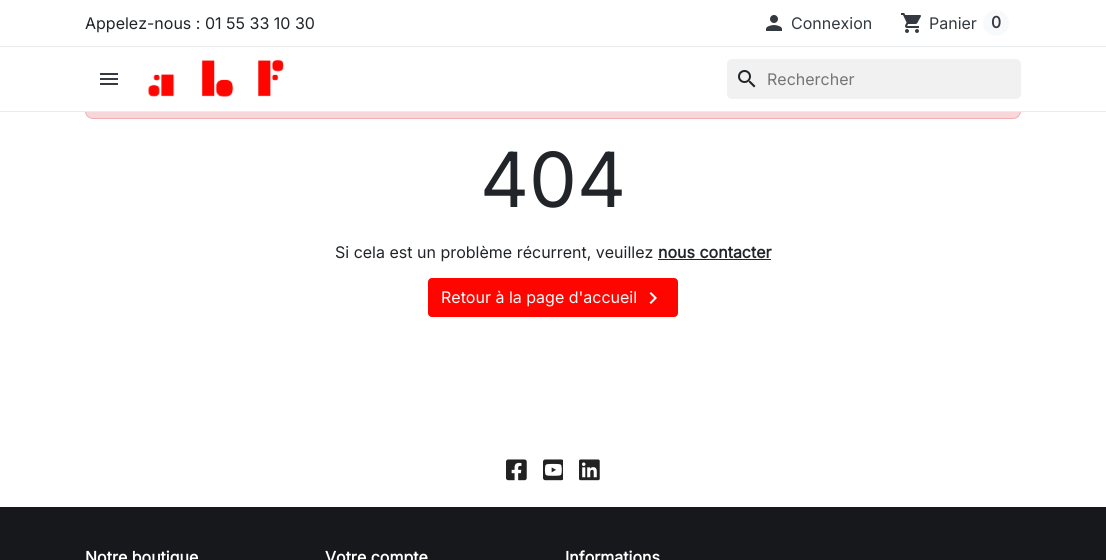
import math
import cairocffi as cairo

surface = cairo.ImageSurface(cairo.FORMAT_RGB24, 1106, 560)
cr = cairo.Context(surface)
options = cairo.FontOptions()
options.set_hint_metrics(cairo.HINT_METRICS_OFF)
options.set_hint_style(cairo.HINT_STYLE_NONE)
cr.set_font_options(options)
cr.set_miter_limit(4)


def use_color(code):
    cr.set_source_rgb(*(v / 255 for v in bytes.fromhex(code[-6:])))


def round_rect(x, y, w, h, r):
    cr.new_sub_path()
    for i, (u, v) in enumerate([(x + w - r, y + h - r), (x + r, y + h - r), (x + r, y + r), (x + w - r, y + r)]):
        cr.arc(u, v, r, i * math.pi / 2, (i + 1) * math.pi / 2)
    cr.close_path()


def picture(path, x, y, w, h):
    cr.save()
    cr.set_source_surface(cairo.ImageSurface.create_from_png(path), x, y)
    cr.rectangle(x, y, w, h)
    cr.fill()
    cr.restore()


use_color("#ffffff")
cr.paint()
use_color("#f8d7da")
round_rect(85.5, 65.5, 935, 53, 7.5)
cr.fill_preserve()
use_color("#f1aeb5")
cr.set_line_width(1)
cr.stroke()
use_color("#ffffff")
cr.rectangle(85, 65, 936, 46)
cr.fill()
use_color("#e9ecef")
cr.rectangle(0, 46, 1106, 1)
cr.fill()
cr.select_font_face("Inter")
cr.set_font_size(16)
use_color("#212529")
cr.move_to(85, 29)
cr.show_text("Appelez-nous : 01 55 33 10 30")
picture("img1.png", 766, 15, 16, 16)
use_color("#343a40")
cr.move_to(791, 29)
cr.show_text("Connexion")
picture("img2.png", 901, 13, 20, 20)
cr.move_to(929, 29)
cr.show_text("Panier")
use_color("#f8f9fa")
cr.new_path()
cr.arc(996, 23, 13, 0, 2 * math.pi)
cr.fill()
cr.select_font_face("Inter", cairo.FONT_SLANT_NORMAL, cairo.FONT_WEIGHT_BOLD)
use_color("#343a40")
cr.move_to(991, 28)
cr.show_text("0")
use_color("#e9ecef")
cr.rectangle(0, 111, 1106, 1)
cr.fill()
picture("img3.png", 100, 73, 18, 12)
picture("img4.png", 148, 60, 136, 37)
use_color("#f1f1f1")
round_rect(727, 59, 294, 40, 5)
cr.fill()
picture("img5.png", 738, 70, 18, 18)
cr.select_font_face("Inter")
use_color("#757575")
cr.move_to(767, 85)
cr.show_text("Rechercher")
cr.set_font_size(76)
use_color("#212529")
cr.move_to(480, 207)
cr.show_text("404")
cr.set_font_size(16)
cr.move_to(335, 258)
cr.show_text("Si cela est un problème récurrent, veuillez")
cr.select_font_face("Inter", cairo.FONT_SLANT_NORMAL, cairo.FONT_WEIGHT_BOLD)
cr.move_to(658, 258)
cr.show_text("nous contacter")
cr.rectangle(658, 259, 113, 1)
cr.fill()
use_color("#ff0500")
round_rect(428.5, 278.5, 249, 38, 3.5)
cr.fill_preserve()
cr.stroke()
cr.select_font_face("Inter")
use_color("#ffffff")
cr.move_to(441, 303)
cr.show_text("Retour à la page d'accueil")
picture("img6.png", 649, 292, 8, 12)
picture("img7.png", 506, 459, 21, 22)
picture("img8.png", 543, 459, 20, 22)
picture("img9.png", 579, 459, 21, 22)
use_color("#16181c")
cr.rectangle(0, 507, 1106, 53)
cr.fill()
cr.select_font_face("Inter", cairo.FONT_SLANT_NORMAL, cairo.FONT_WEIGHT_BOLD)
use_color("#ffffff")
cr.move_to(85, 563)
cr.show_text("Notre boutique")
cr.move_to(325, 563)
cr.show_text("Votre compte")
cr.move_to(565, 563)
cr.show_text("Informations")
surface.write_to_png("result.png")
